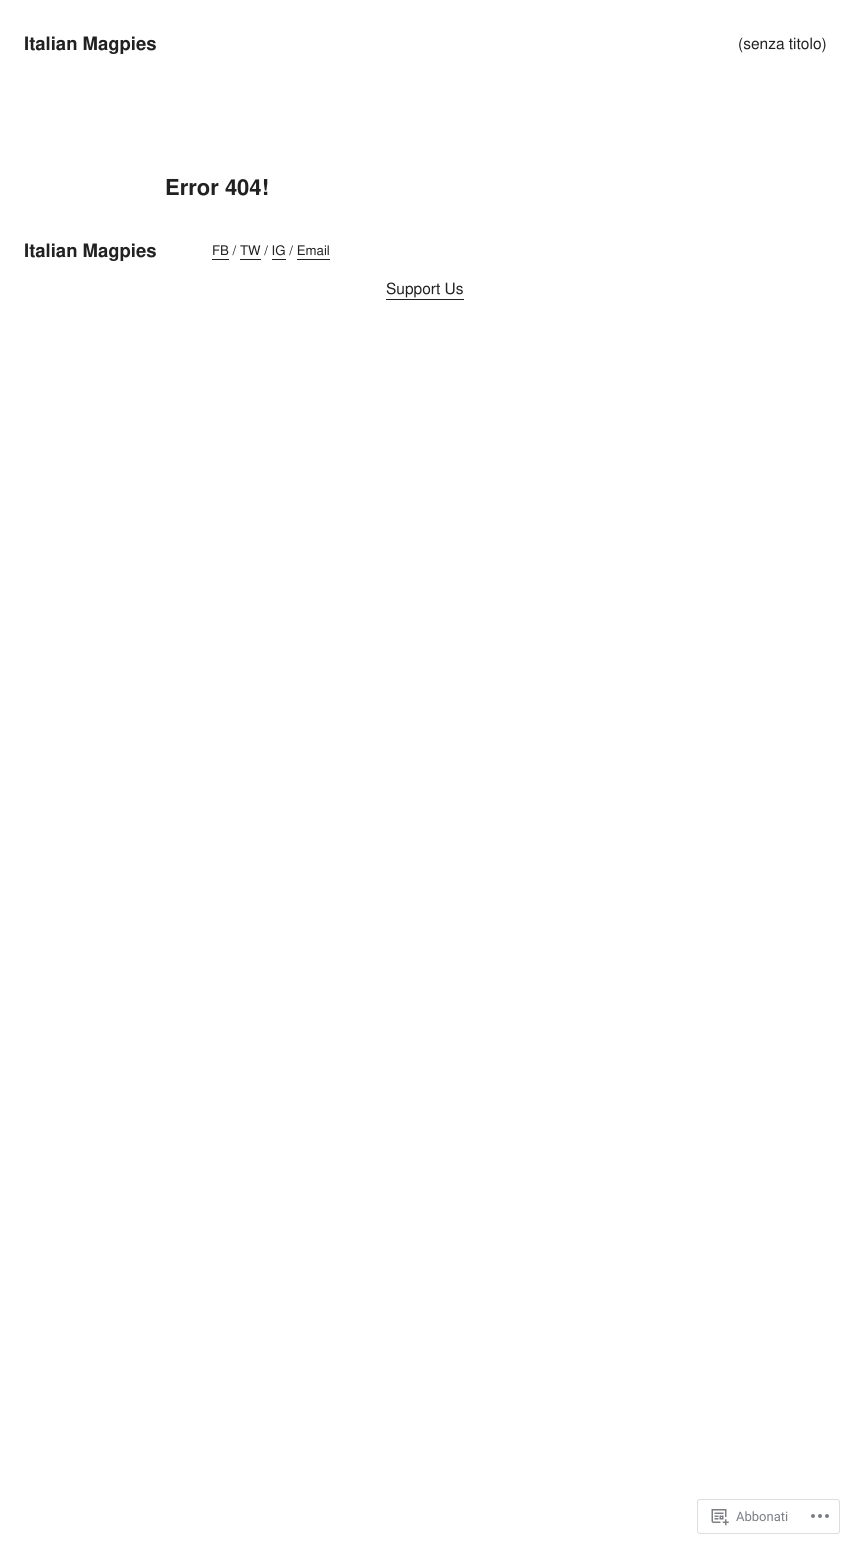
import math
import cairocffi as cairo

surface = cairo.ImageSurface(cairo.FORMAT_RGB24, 850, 1544)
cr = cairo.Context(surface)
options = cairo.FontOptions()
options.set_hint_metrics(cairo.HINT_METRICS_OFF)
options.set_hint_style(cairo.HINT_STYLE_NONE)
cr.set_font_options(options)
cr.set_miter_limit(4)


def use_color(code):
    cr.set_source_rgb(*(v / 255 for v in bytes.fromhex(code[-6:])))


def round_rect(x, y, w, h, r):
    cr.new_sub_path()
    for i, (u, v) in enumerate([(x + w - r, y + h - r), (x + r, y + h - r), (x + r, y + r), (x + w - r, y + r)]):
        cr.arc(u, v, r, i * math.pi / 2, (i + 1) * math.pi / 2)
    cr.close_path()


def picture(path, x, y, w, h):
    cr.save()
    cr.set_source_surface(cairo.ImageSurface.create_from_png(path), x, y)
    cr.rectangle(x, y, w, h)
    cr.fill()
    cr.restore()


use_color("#ffffff")
cr.paint()
cr.select_font_face("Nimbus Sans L", cairo.FONT_SLANT_NORMAL, cairo.FONT_WEIGHT_BOLD)
cr.set_font_size(18.5)
use_color("#212121")
cr.move_to(24, 50)
cr.show_text("Italian Magpies")
cr.select_font_face("Nimbus Sans L")
cr.set_font_size(15.5)
cr.move_to(738, 49)
cr.show_text("(senza titolo)")
cr.select_font_face("Nimbus Sans L", cairo.FONT_SLANT_NORMAL, cairo.FONT_WEIGHT_BOLD)
cr.set_font_size(22)
cr.move_to(165, 195)
cr.show_text("Error 404!")
cr.set_font_size(18.5)
cr.move_to(24, 257)
cr.show_text("Italian Magpies")
cr.select_font_face("Nimbus Sans L")
cr.set_font_size(13.25)
cr.move_to(212, 255)
cr.show_text("FB / TW / IG / Email")
cr.rectangle(212, 259, 17, 1)
cr.fill()
cr.rectangle(240, 259, 21, 1)
cr.fill()
cr.rectangle(272, 259, 14, 1)
cr.fill()
cr.rectangle(297, 259, 33, 1)
cr.fill()
cr.set_font_size(15.5)
cr.move_to(386, 294)
cr.show_text("Support Us")
cr.rectangle(386, 299, 78, 1)
cr.fill()
round_rect(697.5, 1499.5, 142, 34, 2.5)
use_color("#dddddf")
cr.set_line_width(1)
cr.stroke()
picture("img1.png", 711, 1509, 18, 17)
cr.select_font_face("Roboto")
cr.set_font_size(13)
use_color("#7b7f85")
cr.move_to(736, 1521)
cr.show_text("Abbonati")
picture("img2.png", 811, 1514, 18, 4)
surface.write_to_png("result.png")
